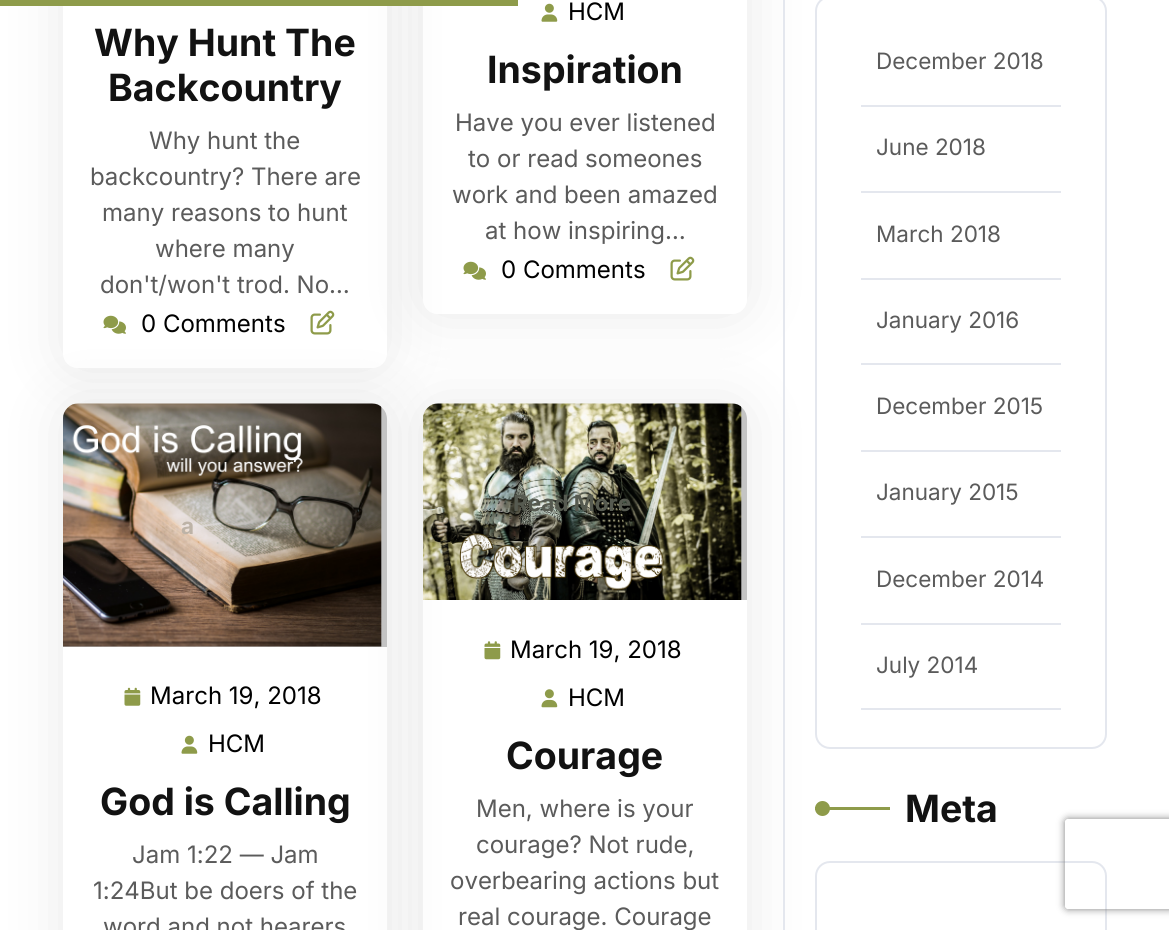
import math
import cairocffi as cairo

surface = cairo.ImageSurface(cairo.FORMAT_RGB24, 1169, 930)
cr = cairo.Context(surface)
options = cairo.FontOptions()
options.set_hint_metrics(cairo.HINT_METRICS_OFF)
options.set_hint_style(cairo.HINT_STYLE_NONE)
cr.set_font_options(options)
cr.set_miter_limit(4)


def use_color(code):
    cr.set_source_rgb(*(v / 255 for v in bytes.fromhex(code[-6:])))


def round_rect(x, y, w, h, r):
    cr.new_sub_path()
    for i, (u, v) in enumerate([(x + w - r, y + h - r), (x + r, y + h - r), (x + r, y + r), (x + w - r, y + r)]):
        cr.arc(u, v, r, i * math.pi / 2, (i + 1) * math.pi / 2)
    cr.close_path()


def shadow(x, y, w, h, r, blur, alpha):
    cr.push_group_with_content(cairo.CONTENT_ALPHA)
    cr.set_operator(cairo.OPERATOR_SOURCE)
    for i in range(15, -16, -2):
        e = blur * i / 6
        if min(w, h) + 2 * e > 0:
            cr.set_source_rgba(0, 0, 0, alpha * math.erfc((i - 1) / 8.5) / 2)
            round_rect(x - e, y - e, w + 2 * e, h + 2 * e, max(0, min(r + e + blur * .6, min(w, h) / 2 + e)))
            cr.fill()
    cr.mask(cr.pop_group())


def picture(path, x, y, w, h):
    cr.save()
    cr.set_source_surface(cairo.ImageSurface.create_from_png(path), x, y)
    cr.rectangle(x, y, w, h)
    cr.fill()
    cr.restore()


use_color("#ffffff")
cr.paint()
cr.save()
cr.set_fill_rule(cairo.FILL_RULE_EVEN_ODD)
cr.new_path()
cr.move_to(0, 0)
cr.line_to(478, 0)
cr.line_to(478, 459)
cr.line_to(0, 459)
cr.close_path()
cr.move_to(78, -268)
cr.line_to(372, -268)
cr.curve_to(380.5, -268, 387, -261.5, 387, -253)
cr.line_to(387, 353)
cr.curve_to(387, 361.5, 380.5, 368, 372, 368)
cr.line_to(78, 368)
cr.curve_to(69.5, 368, 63, 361.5, 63, 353)
cr.line_to(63, -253)
cr.curve_to(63, -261.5, 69.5, -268, 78, -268)
cr.close_path()
cr.clip()
use_color("#000000")
shadow(63, -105, 324, 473, 15, 30, 0.09)
cr.restore()
picture("img2.png", 310, 310, 25, 25)
cr.save()
cr.set_fill_rule(cairo.FILL_RULE_EVEN_ODD)
cr.new_path()
cr.move_to(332, 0)
cr.line_to(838, 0)
cr.line_to(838, 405)
cr.line_to(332, 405)
cr.close_path()
cr.move_to(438, -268)
cr.line_to(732, -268)
cr.curve_to(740.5, -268, 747, -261.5, 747, -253)
cr.line_to(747, 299)
cr.curve_to(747, 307.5, 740.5, 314, 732, 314)
cr.line_to(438, 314)
cr.curve_to(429.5, 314, 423, 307.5, 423, 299)
cr.line_to(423, -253)
cr.curve_to(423, -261.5, 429.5, -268, 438, -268)
cr.close_path()
cr.clip()
use_color("#000000")
shadow(423, -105, 324, 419, 15, 30, 0.09)
cr.restore()
use_color("#8e9b4a")
cr.rectangle(0, 0, 518, 6)
cr.fill()
cr.select_font_face("Inter", cairo.FONT_SLANT_NORMAL, cairo.FONT_WEIGHT_BOLD)
cr.set_font_size(37.5)
use_color("#121212")
cr.move_to(94, 56)
cr.show_text("Why Hunt The")
cr.move_to(108, 101)
cr.show_text("Backcountry")
cr.select_font_face("Inter")
cr.set_font_size(24)
use_color("#5b5b5b")
cr.move_to(149, 149)
cr.show_text("Why hunt the")
cr.move_to(90, 185)
cr.show_text("backcountry? There are")
cr.move_to(102, 221)
cr.show_text("many reasons to hunt")
cr.move_to(155, 257)
cr.show_text("where many")
cr.move_to(100, 293)
cr.show_text("don't/won't trod. No…")
picture("img1.png", 103, 315, 23, 19)
use_color("#000000")
cr.move_to(141, 332)
cr.show_text("0 Comments")
picture("img3.png", 541, 3, 17, 19)
cr.move_to(568, 20)
cr.show_text("HCM")
cr.select_font_face("Inter", cairo.FONT_SLANT_NORMAL, cairo.FONT_WEIGHT_BOLD)
cr.set_font_size(37.5)
use_color("#121212")
cr.move_to(487, 83)
cr.show_text("Inspiration")
cr.select_font_face("Inter")
cr.set_font_size(24)
use_color("#5b5b5b")
cr.move_to(455, 131)
cr.show_text("Have you ever listened")
cr.move_to(468, 167)
cr.show_text("to or read someones")
cr.move_to(452, 203)
cr.show_text("work and been amazed")
cr.move_to(485, 239)
cr.show_text("at how inspiring…")
picture("img4.png", 463, 261, 23, 19)
use_color("#000000")
cr.move_to(501, 278)
cr.show_text("0 Comments")
picture("img2.png", 670, 256, 25, 25)
cr.save()
cr.set_fill_rule(cairo.FILL_RULE_EVEN_ODD)
cr.new_path()
cr.move_to(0, 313)
cr.line_to(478, 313)
cr.line_to(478, 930)
cr.line_to(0, 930)
cr.close_path()
cr.move_to(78, 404)
cr.line_to(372, 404)
cr.curve_to(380.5, 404, 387, 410.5, 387, 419)
cr.line_to(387, 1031)
cr.curve_to(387, 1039.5, 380.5, 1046, 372, 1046)
cr.line_to(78, 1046)
cr.curve_to(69.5, 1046, 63, 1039.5, 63, 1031)
cr.line_to(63, 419)
cr.curve_to(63, 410.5, 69.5, 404, 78, 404)
cr.close_path()
cr.clip()
use_color("#000000")
shadow(63, 404, 324, 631, 15, 30, 0.09)
cr.restore()
cr.save()
cr.set_fill_rule(cairo.FILL_RULE_EVEN_ODD)
cr.new_path()
cr.move_to(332, 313)
cr.line_to(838, 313)
cr.line_to(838, 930)
cr.line_to(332, 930)
cr.close_path()
cr.move_to(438, 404)
cr.line_to(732, 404)
cr.curve_to(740.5, 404, 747, 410.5, 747, 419)
cr.line_to(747, 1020)
cr.curve_to(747, 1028.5, 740.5, 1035, 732, 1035)
cr.line_to(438, 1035)
cr.curve_to(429.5, 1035, 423, 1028.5, 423, 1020)
cr.line_to(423, 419)
cr.curve_to(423, 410.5, 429.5, 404, 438, 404)
cr.close_path()
cr.clip()
use_color("#000000")
shadow(423, 404, 324, 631, 15, 30, 0.09)
cr.restore()
cr.set_source_rgba(0.671, 0.671, 0.671, 0.7)
cr.new_path()
cr.move_to(78, 404)
cr.line_to(372, 404)
cr.curve_to(380.5, 404, 387, 410.5, 387, 419)
cr.line_to(387, 647)
cr.line_to(63, 647)
cr.line_to(63, 419)
cr.curve_to(63, 410.5, 69.5, 404, 78, 404)
cr.close_path()
cr.fill()
picture("img5.png", 63, 403, 319, 244)
cr.select_font_face("Inter", cairo.FONT_SLANT_NORMAL, cairo.FONT_WEIGHT_BOLD)
cr.set_font_size(22.5)
use_color("#bdb3a7")
cr.move_to(181, 534)
cr.show_text("a")
picture("img6.png", 124, 687, 17, 19)
cr.select_font_face("Inter")
cr.set_font_size(24)
use_color("#000000")
cr.move_to(150, 704)
cr.show_text("March 19, 2018")
picture("img3.png", 181, 735, 17, 19)
cr.move_to(208, 752)
cr.show_text("HCM")
cr.select_font_face("Inter", cairo.FONT_SLANT_NORMAL, cairo.FONT_WEIGHT_BOLD)
cr.set_font_size(37.5)
use_color("#121212")
cr.move_to(100, 815)
cr.show_text("God is Calling")
cr.select_font_face("Inter")
cr.set_font_size(24)
use_color("#5b5b5b")
cr.move_to(132, 863)
cr.show_text("Jam 1:22 — Jam")
cr.move_to(93, 899)
cr.show_text("1:24But be doers of the")
cr.move_to(103, 935)
cr.show_text("word and not hearers")
cr.set_source_rgba(0.671, 0.671, 0.671, 0.7)
cr.new_path()
cr.move_to(438, 404)
cr.line_to(732, 404)
cr.curve_to(740.5, 404, 747, 410.5, 747, 419)
cr.line_to(747, 600)
cr.line_to(423, 600)
cr.line_to(423, 419)
cr.curve_to(423, 410.5, 429.5, 404, 438, 404)
cr.close_path()
cr.fill()
picture("img7.png", 423, 403, 319, 197)
cr.select_font_face("Inter", cairo.FONT_SLANT_NORMAL, cairo.FONT_WEIGHT_BOLD)
cr.set_font_size(22.5)
use_color("#565a50")
cr.move_to(513, 511)
cr.show_text("Read More")
picture("img8.png", 484, 641, 17, 19)
cr.select_font_face("Inter")
cr.set_font_size(24)
use_color("#000000")
cr.move_to(510, 658)
cr.show_text("March 19, 2018")
picture("img9.png", 541, 689, 17, 19)
cr.move_to(568, 706)
cr.show_text("HCM")
cr.select_font_face("Inter", cairo.FONT_SLANT_NORMAL, cairo.FONT_WEIGHT_BOLD)
cr.set_font_size(37.5)
use_color("#121212")
cr.move_to(506, 769)
cr.show_text("Courage")
cr.select_font_face("Inter")
cr.set_font_size(24)
use_color("#5b5b5b")
cr.move_to(476, 817)
cr.show_text("Men, where is your")
cr.move_to(476, 853)
cr.show_text("courage? Not rude,")
cr.move_to(450, 889)
cr.show_text("overbearing actions but")
cr.move_to(458, 925)
cr.show_text("real courage. Courage")
use_color("#e4e7ee")
cr.rectangle(783, 0, 2, 930)
cr.fill()
round_rect(816, -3, 290, 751, 14)
cr.stroke()
cr.rectangle(861, 105, 200, 2)
cr.fill()
cr.set_font_size(22.5)
use_color("#5b5b5b")
cr.move_to(876, 69)
cr.show_text("December 2018")
use_color("#e4e7ee")
cr.rectangle(861, 191, 200, 2)
cr.fill()
use_color("#5b5b5b")
cr.move_to(876, 155)
cr.show_text("June 2018")
use_color("#e4e7ee")
cr.rectangle(861, 278, 200, 2)
cr.fill()
use_color("#5b5b5b")
cr.move_to(876, 242)
cr.show_text("March 2018")
use_color("#e4e7ee")
cr.rectangle(861, 363, 200, 2)
cr.fill()
use_color("#5b5b5b")
cr.move_to(876, 328)
cr.show_text("January 2016")
use_color("#e4e7ee")
cr.rectangle(861, 450, 200, 2)
cr.fill()
use_color("#5b5b5b")
cr.move_to(876, 414)
cr.show_text("December 2015")
use_color("#e4e7ee")
cr.rectangle(861, 536, 200, 2)
cr.fill()
use_color("#5b5b5b")
cr.move_to(876, 500)
cr.show_text("January 2015")
use_color("#e4e7ee")
cr.rectangle(861, 623, 200, 2)
cr.fill()
use_color("#5b5b5b")
cr.move_to(876, 587)
cr.show_text("December 2014")
use_color("#e4e7ee")
cr.rectangle(861, 708, 200, 2)
cr.fill()
use_color("#5b5b5b")
cr.move_to(876, 673)
cr.show_text("July 2014")
use_color("#8e9b4a")
cr.rectangle(815, 807, 75, 3)
cr.fill()
cr.arc(822.5, 808.5, 7.5, 0, 2 * math.pi)
cr.fill()
cr.select_font_face("Inter", cairo.FONT_SLANT_NORMAL, cairo.FONT_WEIGHT_BOLD)
cr.set_font_size(37.5)
use_color("#121212")
cr.move_to(905, 822)
cr.show_text("Meta")
round_rect(816, 862, 290, 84, 14)
use_color("#e4e7ee")
cr.stroke()
cr.save()
cr.set_fill_rule(cairo.FILL_RULE_EVEN_ODD)
cr.new_path()
cr.move_to(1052, 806)
cr.line_to(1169, 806)
cr.line_to(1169, 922)
cr.line_to(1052, 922)
cr.close_path()
cr.move_to(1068, 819)
cr.line_to(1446, 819)
cr.curve_to(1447.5, 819, 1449, 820.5, 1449, 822)
cr.line_to(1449, 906)
cr.curve_to(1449, 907.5, 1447.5, 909, 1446, 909)
cr.line_to(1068, 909)
cr.curve_to(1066.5, 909, 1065, 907.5, 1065, 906)
cr.line_to(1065, 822)
cr.curve_to(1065, 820.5, 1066.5, 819, 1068, 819)
cr.close_path()
cr.clip()
use_color("#808080")
shadow(1065, 819, 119, 90, 3, 4, 1)
cr.restore()
surface.write_to_png("result.png")
